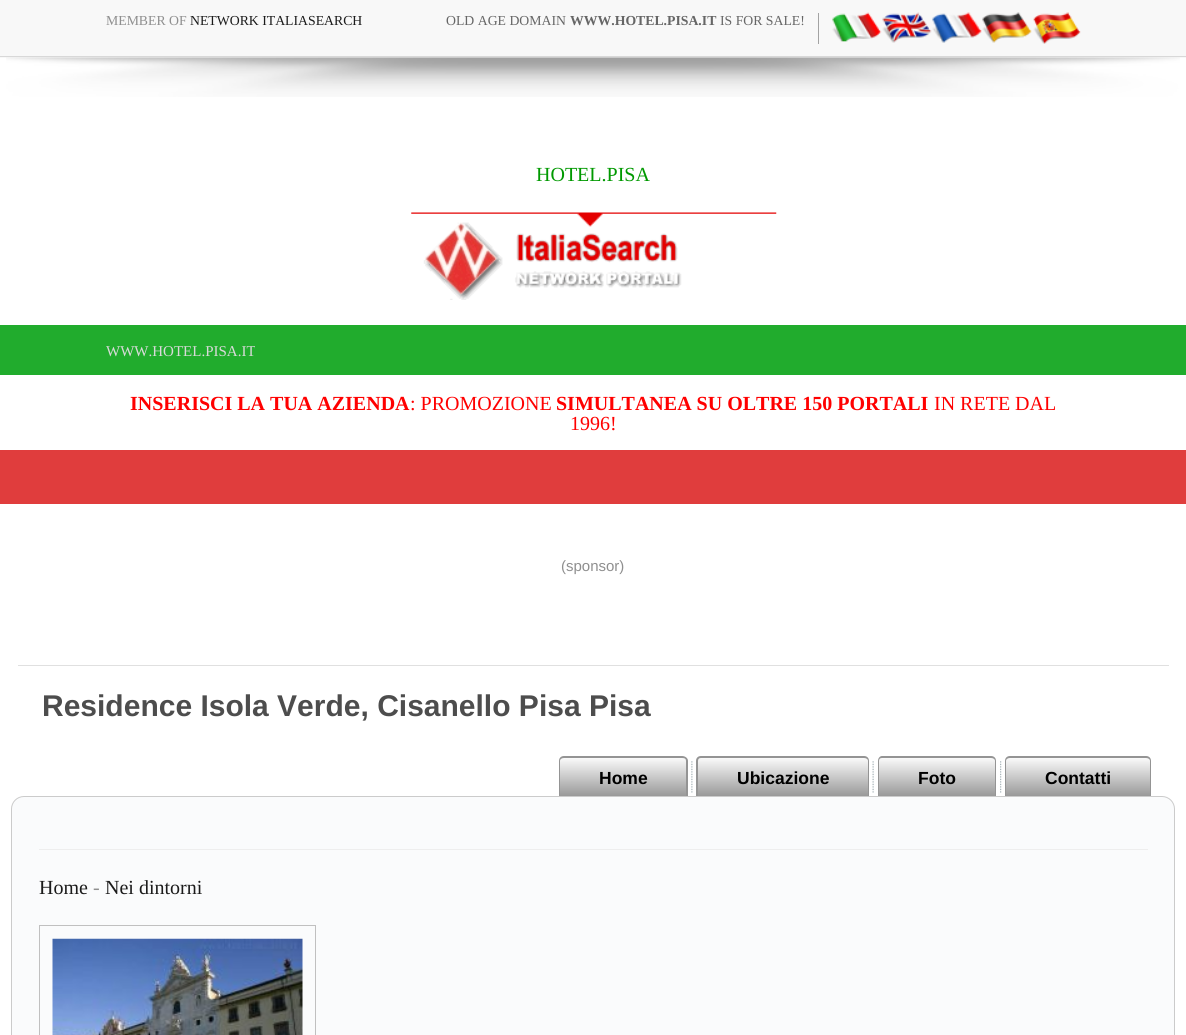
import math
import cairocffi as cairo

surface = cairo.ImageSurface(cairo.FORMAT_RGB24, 1186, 1035)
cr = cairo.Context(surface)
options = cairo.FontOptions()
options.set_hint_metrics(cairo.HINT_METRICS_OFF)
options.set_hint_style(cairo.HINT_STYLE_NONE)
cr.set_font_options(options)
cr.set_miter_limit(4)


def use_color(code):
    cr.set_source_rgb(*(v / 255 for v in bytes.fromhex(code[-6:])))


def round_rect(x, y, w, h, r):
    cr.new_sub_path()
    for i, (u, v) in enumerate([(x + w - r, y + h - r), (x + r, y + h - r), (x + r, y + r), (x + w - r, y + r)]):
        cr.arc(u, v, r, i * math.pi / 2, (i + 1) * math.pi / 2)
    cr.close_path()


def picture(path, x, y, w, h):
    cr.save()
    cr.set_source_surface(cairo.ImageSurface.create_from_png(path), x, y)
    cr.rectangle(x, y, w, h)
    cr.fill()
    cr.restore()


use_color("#ffffff")
cr.paint()
use_color("#f8f8f8")
cr.rectangle(0, 0, 1186, 58)
cr.fill()
use_color("#d8d8d8")
cr.rectangle(0, 56, 1186, 1)
cr.fill()
cr.select_font_face("Liberation Serif")
cr.set_font_size(13.75)
use_color("#8f8f8f")
cr.move_to(106, 25)
cr.show_text("MEMBER OF")
use_color("#1b1b1b")
cr.move_to(190, 25)
cr.show_text("NETWORK ITALIASEARCH")
use_color("#666666")
cr.move_to(446, 25)
cr.show_text("OLD AGE DOMAIN")
cr.select_font_face("Liberation Serif", cairo.FONT_SLANT_NORMAL, cairo.FONT_WEIGHT_BOLD)
cr.move_to(570, 25)
cr.show_text("WWW.HOTEL.PISA.IT")
cr.select_font_face("Liberation Serif")
cr.move_to(720, 25)
cr.show_text("IS FOR SALE!")
use_color("#a3a3a3")
cr.rectangle(818, 13, 1, 31)
cr.fill()
picture("img1.png", 832, 12, 50, 30)
picture("img2.png", 882, 12, 50, 31)
picture("img3.png", 932, 12, 50, 31)
picture("img4.png", 982, 12, 50, 31)
picture("img5.png", 1033, 12, 48, 32)
picture("img6.png", 6, 57, 1174, 40)
cr.set_font_size(20)
use_color("#009900")
cr.move_to(536, 181)
cr.show_text("HOTEL.PISA")
picture("img7.png", 411, 212, 366, 88)
use_color("#21ac2d")
cr.rectangle(0, 325, 1186, 50)
cr.fill()
cr.set_font_size(15)
use_color("#dadada")
cr.move_to(106, 356)
cr.show_text("WWW.HOTEL.PISA.IT")
cr.select_font_face("Liberation Serif", cairo.FONT_SLANT_NORMAL, cairo.FONT_WEIGHT_BOLD)
cr.set_font_size(20)
use_color("#ff0000")
cr.move_to(130, 410)
cr.show_text("INSERISCI LA TUA AZIENDA")
cr.select_font_face("Liberation Serif")
cr.move_to(410, 410)
cr.show_text(": PROMOZIONE")
cr.select_font_face("Liberation Serif", cairo.FONT_SLANT_NORMAL, cairo.FONT_WEIGHT_BOLD)
cr.move_to(556, 410)
cr.show_text("SIMULTANEA SU OLTRE 150 PORTALI")
cr.select_font_face("Liberation Serif")
cr.move_to(934, 410)
cr.show_text("IN RETE DAL")
cr.move_to(570, 430)
cr.show_text("1996!")
use_color("#e03d3d")
cr.rectangle(0, 450, 1186, 54)
cr.fill()
cr.select_font_face("Liberation Sans")
cr.set_font_size(15)
use_color("#8f8f8f")
cr.move_to(561, 571)
cr.show_text("(sponsor)")
use_color("#e0e0e0")
cr.rectangle(18, 665, 1151, 1)
cr.fill()
cr.select_font_face("Liberation Sans", cairo.FONT_SLANT_NORMAL, cairo.FONT_WEIGHT_BOLD)
cr.set_font_size(30)
use_color("#4d4d4d")
cr.move_to(42, 716)
cr.show_text("Residence Isola Verde, Cisanello Pisa Pisa")
gradient = cairo.LinearGradient(623, 756, 623, 796)
gradient.add_color_stop_rgba(0, 1, 1, 1, 1)
gradient.add_color_stop_rgba(1, 0.6, 0.6, 0.6, 1)
cr.set_source(gradient)
cr.new_path()
cr.move_to(564, 756)
cr.line_to(683, 756)
cr.curve_to(686, 756, 688, 758, 688, 761)
cr.line_to(688, 796)
cr.line_to(559, 796)
cr.line_to(559, 761)
cr.curve_to(559, 758, 561, 756, 564, 756)
cr.close_path()
cr.fill()
use_color("#949494")
cr.set_fill_rule(cairo.FILL_RULE_EVEN_ODD)
cr.new_path()
cr.move_to(564, 756)
cr.line_to(682, 756)
cr.curve_to(685, 756, 688, 758, 688, 761)
cr.line_to(688, 796)
cr.line_to(559, 796)
cr.line_to(559, 761)
cr.curve_to(559, 758, 561, 756, 564, 756)
cr.close_path()
cr.move_to(564, 758)
cr.line_to(682, 758)
cr.curve_to(685, 758, 686, 759, 686, 761)
cr.line_to(686, 796)
cr.line_to(560, 796)
cr.line_to(560, 761)
cr.curve_to(560, 759, 562, 758, 564, 758)
cr.close_path()
cr.fill()
cr.set_font_size(17.5)
use_color("#000000")
cr.move_to(599, 784)
cr.show_text("Home")
picture("img8.png", 691, 761, 2, 32)
gradient = cairo.LinearGradient(783, 756, 783, 796)
gradient.add_color_stop_rgba(0, 1, 1, 1, 1)
gradient.add_color_stop_rgba(1, 0.6, 0.6, 0.6, 1)
cr.set_source(gradient)
cr.new_path()
cr.move_to(701, 756)
cr.line_to(864, 756)
cr.curve_to(867, 756, 869, 758, 869, 761)
cr.line_to(869, 796)
cr.line_to(696, 796)
cr.line_to(696, 761)
cr.curve_to(696, 758, 698, 756, 701, 756)
cr.close_path()
cr.fill()
use_color("#949494")
cr.new_path()
cr.move_to(701, 756)
cr.line_to(864, 756)
cr.curve_to(867, 756, 869, 758, 869, 761)
cr.line_to(869, 796)
cr.line_to(696, 796)
cr.line_to(696, 761)
cr.curve_to(696, 758, 698, 756, 701, 756)
cr.close_path()
cr.move_to(701, 758)
cr.line_to(864, 758)
cr.curve_to(866, 758, 868, 759, 868, 761)
cr.line_to(868, 796)
cr.line_to(698, 796)
cr.line_to(698, 761)
cr.curve_to(698, 759, 699, 758, 701, 758)
cr.close_path()
cr.fill()
use_color("#000000")
cr.move_to(737, 784)
cr.show_text("Ubicazione")
picture("img9.png", 872, 761, 2, 32)
gradient = cairo.LinearGradient(937, 756, 937, 796)
gradient.add_color_stop_rgba(0, 1, 1, 1, 1)
gradient.add_color_stop_rgba(1, 0.6, 0.6, 0.6, 1)
cr.set_source(gradient)
cr.new_path()
cr.move_to(883, 756)
cr.line_to(991, 756)
cr.curve_to(994, 756, 996, 758, 996, 761)
cr.line_to(996, 796)
cr.line_to(878, 796)
cr.line_to(878, 761)
cr.curve_to(878, 758, 880, 756, 883, 756)
cr.close_path()
cr.fill()
use_color("#949494")
cr.new_path()
cr.move_to(882, 756)
cr.line_to(991, 756)
cr.curve_to(994, 756, 996, 758, 996, 761)
cr.line_to(996, 796)
cr.line_to(878, 796)
cr.line_to(878, 761)
cr.curve_to(878, 758, 880, 756, 882, 756)
cr.close_path()
cr.move_to(882, 758)
cr.line_to(991, 758)
cr.curve_to(993, 758, 995, 759, 995, 761)
cr.line_to(995, 796)
cr.line_to(879, 796)
cr.line_to(879, 761)
cr.curve_to(879, 759, 880, 758, 882, 758)
cr.close_path()
cr.fill()
use_color("#000000")
cr.move_to(918, 784)
cr.show_text("Foto")
picture("img10.png", 1000, 761, 2, 32)
gradient = cairo.LinearGradient(1078, 756, 1078, 796)
gradient.add_color_stop_rgba(0, 1, 1, 1, 1)
gradient.add_color_stop_rgba(1, 0.6, 0.6, 0.6, 1)
cr.set_source(gradient)
cr.new_path()
cr.move_to(1010, 756)
cr.line_to(1146, 756)
cr.curve_to(1149, 756, 1151, 758, 1151, 761)
cr.line_to(1151, 796)
cr.line_to(1005, 796)
cr.line_to(1005, 761)
cr.curve_to(1005, 758, 1007, 756, 1010, 756)
cr.close_path()
cr.fill()
use_color("#949494")
cr.new_path()
cr.move_to(1010, 756)
cr.line_to(1146, 756)
cr.curve_to(1149, 756, 1151, 758, 1151, 761)
cr.line_to(1151, 796)
cr.line_to(1005, 796)
cr.line_to(1005, 761)
cr.curve_to(1005, 758, 1007, 756, 1010, 756)
cr.close_path()
cr.move_to(1010, 758)
cr.line_to(1146, 758)
cr.curve_to(1148, 758, 1150, 759, 1150, 761)
cr.line_to(1150, 796)
cr.line_to(1006, 796)
cr.line_to(1006, 761)
cr.curve_to(1006, 759, 1008, 758, 1010, 758)
cr.close_path()
cr.fill()
use_color("#000000")
cr.move_to(1045, 784)
cr.show_text("Contatti")
use_color("#fafbfc")
round_rect(11.5, 796.5, 1163, 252, 12.5)
cr.fill_preserve()
use_color("#cbcbcb")
cr.set_line_width(1)
cr.stroke()
use_color("#eeeeee")
cr.rectangle(39, 849, 1109, 1)
cr.fill()
cr.select_font_face("Liberation Serif")
cr.set_font_size(20)
use_color("#1b1b1b")
cr.move_to(39, 894)
cr.show_text("Home")
use_color("#8f8f8f")
cr.move_to(93, 894)
cr.show_text("-")
use_color("#1b1b1b")
cr.move_to(105, 894)
cr.show_text("Nei dintorni")
cr.rectangle(39.5, 925.5, 276, 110)
use_color("#c0c0c0")
cr.stroke()
picture("img11.png", 52, 938, 251, 97)
surface.write_to_png("result.png")
